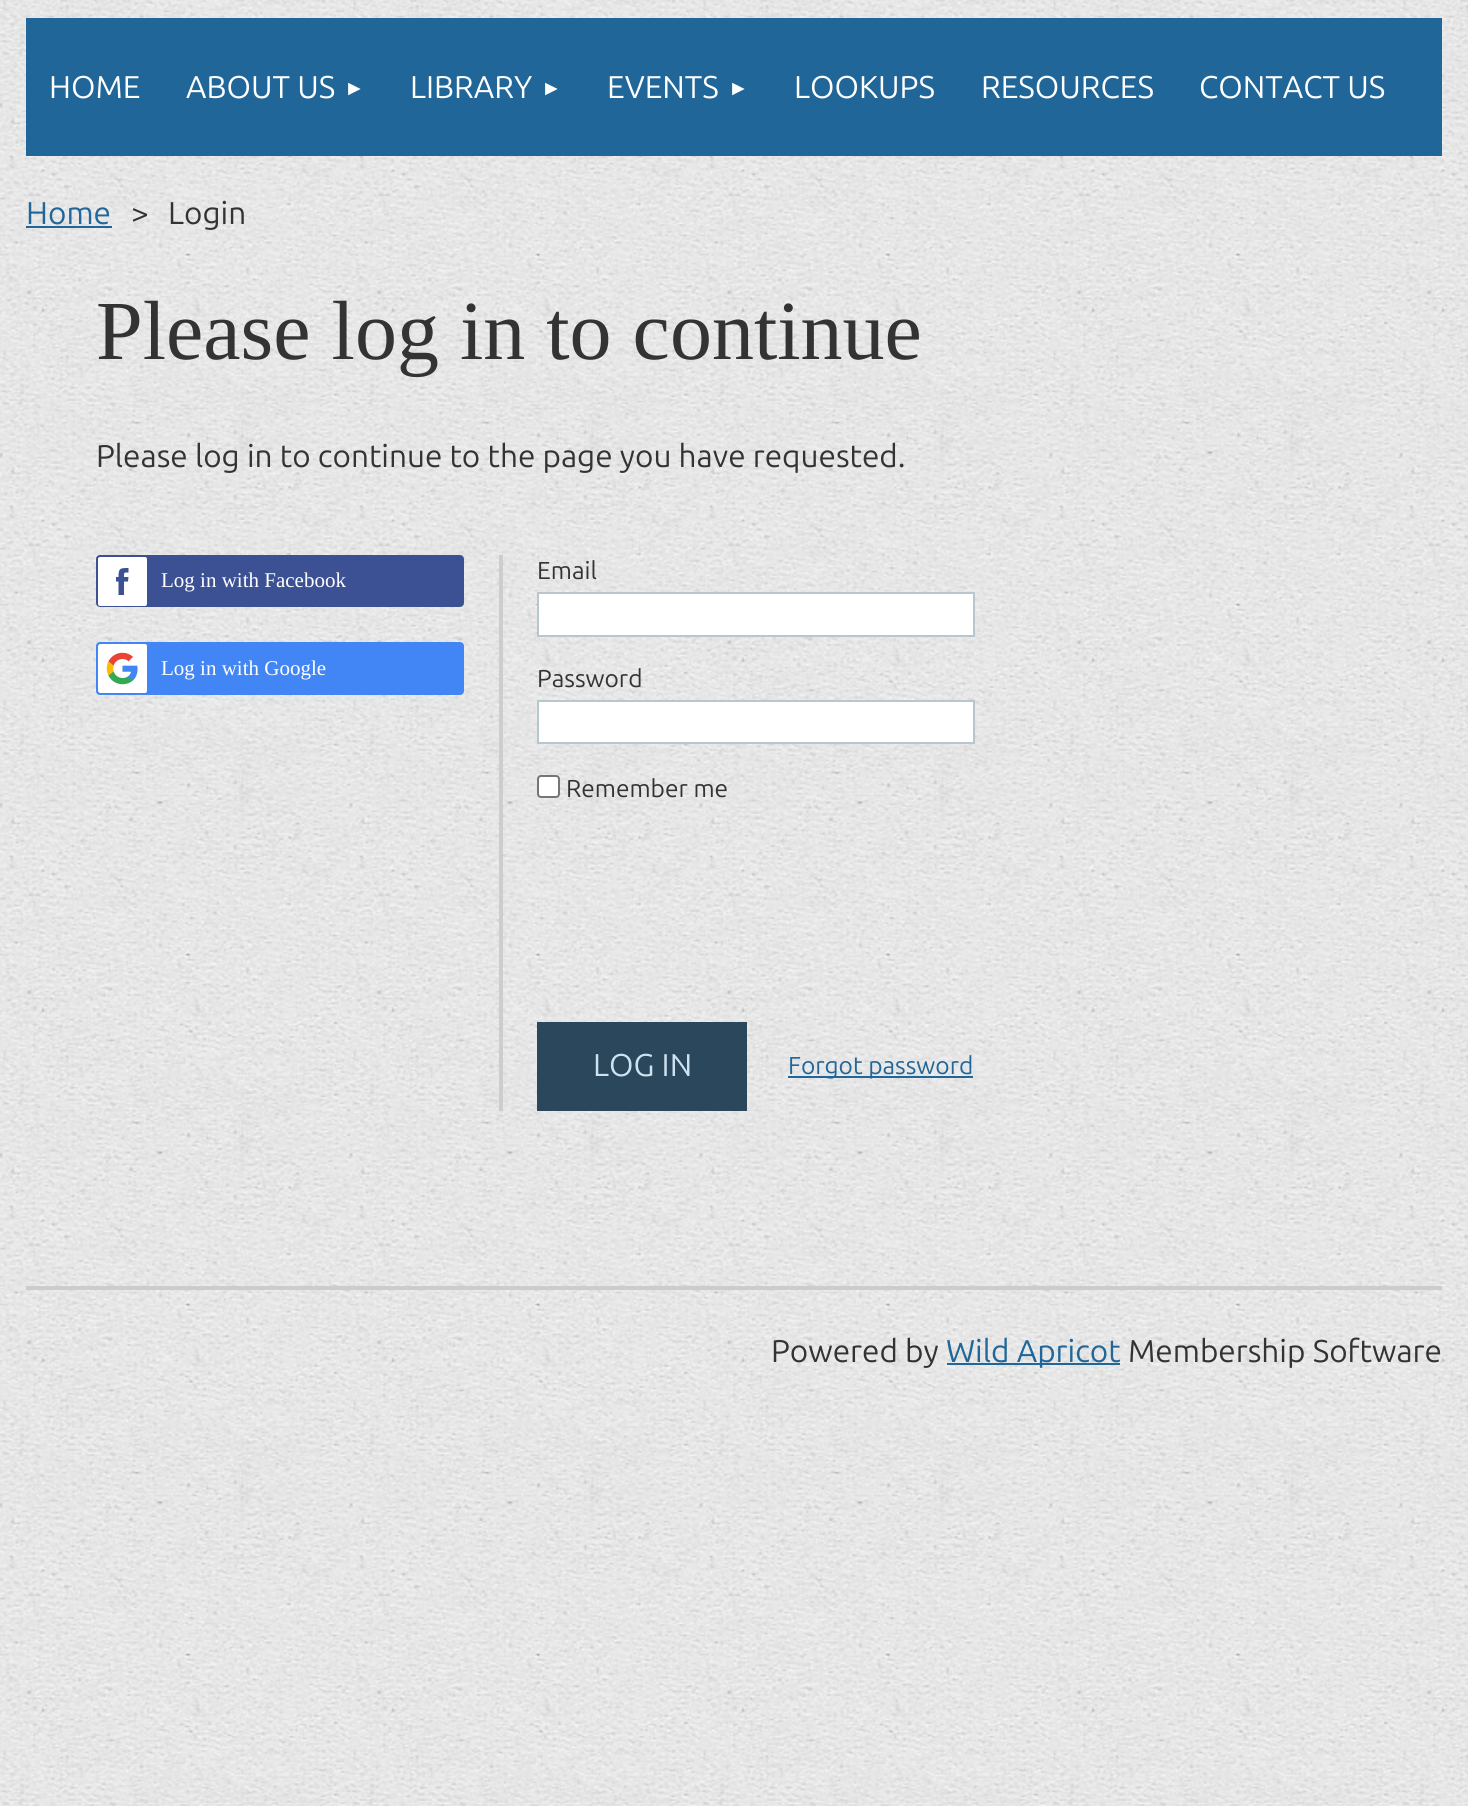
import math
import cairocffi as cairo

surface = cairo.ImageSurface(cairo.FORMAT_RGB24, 1468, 1806)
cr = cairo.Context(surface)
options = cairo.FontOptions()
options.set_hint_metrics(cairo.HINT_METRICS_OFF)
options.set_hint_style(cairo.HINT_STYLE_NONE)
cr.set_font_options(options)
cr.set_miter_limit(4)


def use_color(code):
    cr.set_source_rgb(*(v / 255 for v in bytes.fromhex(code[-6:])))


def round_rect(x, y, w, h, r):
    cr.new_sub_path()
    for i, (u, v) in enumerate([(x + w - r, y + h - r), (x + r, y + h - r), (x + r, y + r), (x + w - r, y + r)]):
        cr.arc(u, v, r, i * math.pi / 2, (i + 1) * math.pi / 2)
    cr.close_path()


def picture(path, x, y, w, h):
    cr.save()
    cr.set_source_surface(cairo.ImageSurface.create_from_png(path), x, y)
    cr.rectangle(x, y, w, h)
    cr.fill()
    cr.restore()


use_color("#ffffff")
cr.paint()
picture("img1.png", 0, 0, 1468, 1806)
use_color("#206699")
cr.rectangle(26, 18, 1416, 138)
cr.fill()
cr.select_font_face("Ubuntu")
cr.set_font_size(31.5)
use_color("#ffffff")
cr.move_to(49, 98)
cr.show_text("HOME")
cr.move_to(186, 98)
cr.show_text("ABOUT US")
cr.select_font_face("Liberation Sans")
cr.set_font_size(21)
cr.move_to(344, 95)
cr.show_text("►")
cr.select_font_face("Ubuntu")
cr.set_font_size(31.5)
cr.move_to(410, 98)
cr.show_text("LIBRARY")
cr.select_font_face("Liberation Sans")
cr.set_font_size(21)
cr.move_to(541, 95)
cr.show_text("►")
cr.select_font_face("Ubuntu")
cr.set_font_size(31.5)
cr.move_to(607, 98)
cr.show_text("EVENTS")
cr.select_font_face("Liberation Sans")
cr.set_font_size(21)
cr.move_to(728, 95)
cr.show_text("►")
cr.select_font_face("Ubuntu")
cr.set_font_size(31.5)
cr.move_to(794, 98)
cr.show_text("LOOKUPS")
cr.move_to(981, 98)
cr.show_text("RESOURCES")
cr.move_to(1199, 98)
cr.show_text("CONTACT US")
use_color("#206699")
cr.move_to(26, 224)
cr.show_text("Home")
cr.rectangle(26, 226, 86, 2)
cr.fill()
use_color("#333333")
cr.move_to(131, 224)
cr.show_text(">")
cr.move_to(168, 224)
cr.show_text("Login")
cr.select_font_face("Liberation Serif")
cr.set_font_size(84)
cr.move_to(96, 359)
cr.show_text("Please log in to continue")
cr.select_font_face("Ubuntu")
cr.set_font_size(31.5)
cr.move_to(96, 467)
cr.show_text("Please log in to continue to the page you have requested.")
use_color("#3c5193")
round_rect(97, 556, 366, 50, 3)
cr.fill_preserve()
cr.stroke()
use_color("#ffffff")
round_rect(98, 557, 49, 49, 2)
cr.fill()
use_color("#3c5193")
cr.set_fill_rule(cairo.FILL_RULE_EVEN_ODD)
cr.new_path()
cr.move_to(116, 577)
cr.line_to(116, 581.5)
cr.line_to(118.5, 581.5)
cr.line_to(118.5, 595)
cr.line_to(124, 595)
cr.line_to(124, 581.5)
cr.line_to(128, 581.5)
cr.line_to(128.5, 577)
cr.line_to(124, 577)
cr.curve_to(124, 572, 124, 572.5, 128.5, 572.5)
cr.line_to(128.5, 568)
cr.curve_to(120, 568, 118.5, 568, 118.5, 577)
cr.close_path()
cr.fill()
cr.select_font_face("Liberation Serif")
cr.set_font_size(21)
use_color("#ffffff")
cr.move_to(161, 587)
cr.show_text("Log in with Facebook")
use_color("#4285f4")
round_rect(97, 643, 366, 51, 3)
cr.fill_preserve()
cr.stroke()
picture("img2.png", 98, 644, 49, 49)
use_color("#ffffff")
cr.move_to(161, 675)
cr.show_text("Log in with Google")
use_color("#cdcdcd")
cr.rectangle(499, 555, 4, 556)
cr.fill()
cr.select_font_face("Ubuntu")
cr.set_font_size(24.5)
use_color("#333333")
cr.move_to(537, 579)
cr.show_text("Email")
use_color("#ffffff")
cr.rectangle(538, 593, 436, 43)
cr.fill_preserve()
use_color("#b8c6cd")
cr.stroke()
use_color("#333333")
cr.move_to(537, 687)
cr.show_text("Password")
use_color("#ffffff")
cr.rectangle(538, 701, 436, 42)
cr.fill_preserve()
use_color("#b8c6cd")
cr.stroke()
use_color("#ffffff")
round_rect(538, 776, 21, 21, 3)
cr.fill_preserve()
use_color("#767676")
cr.stroke()
use_color("#333333")
cr.move_to(566, 797)
cr.show_text("Remember me")
use_color("#2b475b")
cr.rectangle(537, 1022, 210, 89)
cr.fill()
cr.set_font_size(31.5)
use_color("#cee3f2")
cr.move_to(593, 1076)
cr.show_text("LOG IN")
use_color("#206699")
cr.rectangle(788, 1076, 185, 2)
cr.fill()
cr.set_font_size(24.5)
cr.move_to(788, 1074)
cr.show_text("Forgot password")
use_color("#cccccc")
cr.rectangle(26, 1286, 1416, 4)
cr.fill()
cr.set_font_size(31.5)
use_color("#333333")
cr.move_to(771, 1362)
cr.show_text("Powered by")
use_color("#206699")
cr.rectangle(947, 1363, 173, 2)
cr.fill()
cr.move_to(946, 1362)
cr.show_text("Wild Apricot")
use_color("#333333")
cr.move_to(1128, 1362)
cr.show_text("Membership Software")
surface.write_to_png("result.png")
